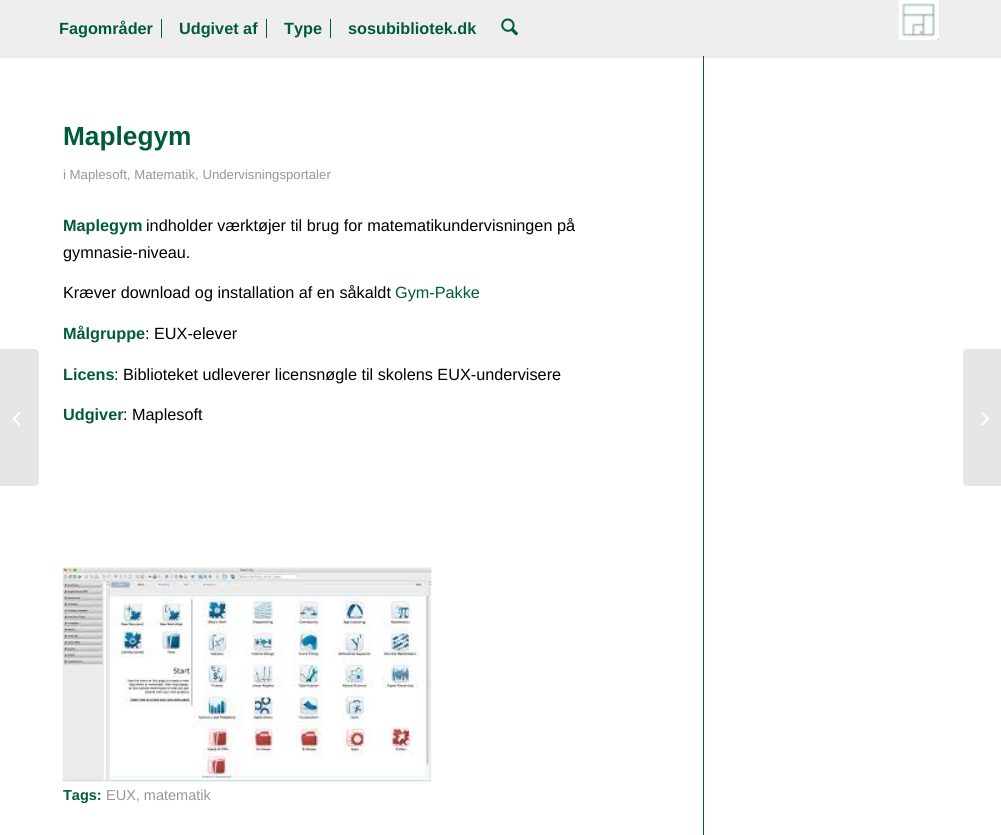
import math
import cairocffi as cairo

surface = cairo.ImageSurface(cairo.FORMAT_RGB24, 1001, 835)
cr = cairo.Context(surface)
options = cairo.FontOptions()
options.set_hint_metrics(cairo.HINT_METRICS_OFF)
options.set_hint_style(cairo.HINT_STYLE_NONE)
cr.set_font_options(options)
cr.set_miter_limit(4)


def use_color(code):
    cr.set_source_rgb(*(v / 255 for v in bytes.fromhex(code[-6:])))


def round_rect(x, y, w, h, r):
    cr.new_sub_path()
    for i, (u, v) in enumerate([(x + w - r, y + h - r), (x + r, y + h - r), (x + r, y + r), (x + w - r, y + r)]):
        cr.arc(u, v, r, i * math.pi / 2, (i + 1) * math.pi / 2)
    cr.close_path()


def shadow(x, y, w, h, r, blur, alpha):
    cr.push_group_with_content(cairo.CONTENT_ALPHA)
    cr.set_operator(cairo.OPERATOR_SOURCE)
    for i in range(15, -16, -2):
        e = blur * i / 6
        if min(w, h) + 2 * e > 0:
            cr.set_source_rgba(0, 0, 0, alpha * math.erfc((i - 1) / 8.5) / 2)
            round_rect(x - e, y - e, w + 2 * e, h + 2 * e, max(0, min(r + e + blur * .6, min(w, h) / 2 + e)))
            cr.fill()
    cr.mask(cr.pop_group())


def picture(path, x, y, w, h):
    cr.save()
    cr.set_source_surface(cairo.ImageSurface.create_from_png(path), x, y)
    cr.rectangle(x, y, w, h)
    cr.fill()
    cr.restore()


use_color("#eeeeee")
cr.paint()
use_color("#ffffff")
cr.rectangle(0, 56, 1001, 779)
cr.fill()
use_color("#005c36")
cr.rectangle(703, 56, 1, 779)
cr.fill()
cr.save()
cr.rectangle(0, 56, 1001, 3)
cr.clip()
use_color("#000000")
shadow(-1, -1, 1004, 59, 0, 1, 0.1)
cr.restore()
cr.select_font_face("Liberation Sans", cairo.FONT_SLANT_NORMAL, cairo.FONT_WEIGHT_BOLD)
cr.set_font_size(16.25)
cr.move_to(59, 34)
cr.show_text("Fagområder")
cr.move_to(179, 34)
cr.show_text("Udgivet af")
cr.rectangle(161, 19, 1, 19)
cr.fill()
cr.move_to(284, 34)
cr.show_text("Type")
cr.rectangle(266, 19, 1, 19)
cr.fill()
cr.move_to(348, 34)
cr.show_text("sosubibliotek.dk")
cr.rectangle(330, 19, 1, 19)
cr.fill()
picture("img1.png", 501, 18, 17, 18)
picture("img2.png", 898, 0, 41, 40)
use_color("#e6e6e6")
cr.new_path()
cr.move_to(0, 349)
cr.line_to(34, 349)
cr.curve_to(37, 349, 39, 351, 39, 354)
cr.line_to(39, 481)
cr.curve_to(39, 484, 37, 486, 34, 486)
cr.line_to(0, 486)
cr.close_path()
cr.fill()
picture("img3.png", 13, 412, 7, 14)
cr.set_font_size(26.25)
use_color("#005c36")
cr.move_to(63, 145)
cr.show_text("Maplegym")
cr.select_font_face("Liberation Sans")
cr.set_font_size(13.2)
use_color("#969696")
cr.move_to(63, 179)
cr.show_text("i Maplesoft, Matematik, Undervisningsportaler")
cr.select_font_face("Liberation Sans", cairo.FONT_SLANT_NORMAL, cairo.FONT_WEIGHT_BOLD)
cr.set_font_size(16.25)
use_color("#005c36")
cr.move_to(63, 231)
cr.show_text("Maplegym")
cr.select_font_face("Liberation Sans")
use_color("#000000")
cr.move_to(146, 231)
cr.show_text("indholder værktøjer til brug for matematikundervisningen på")
cr.move_to(63, 258)
cr.show_text("gymnasie-niveau.")
cr.move_to(63, 298)
cr.show_text("Kræver download og installation af en såkaldt")
use_color("#005c36")
cr.move_to(395, 298)
cr.show_text("Gym-Pakke")
cr.select_font_face("Liberation Sans", cairo.FONT_SLANT_NORMAL, cairo.FONT_WEIGHT_BOLD)
cr.move_to(63, 339)
cr.show_text("Målgruppe")
cr.select_font_face("Liberation Sans")
use_color("#000000")
cr.move_to(145, 339)
cr.show_text(": EUX-elever")
cr.select_font_face("Liberation Sans", cairo.FONT_SLANT_NORMAL, cairo.FONT_WEIGHT_BOLD)
use_color("#005c36")
cr.move_to(63, 380)
cr.show_text("Licens")
cr.select_font_face("Liberation Sans")
use_color("#000000")
cr.move_to(114, 380)
cr.show_text(": Biblioteket udleverer licensnøgle til skolens EUX-undervisere")
cr.select_font_face("Liberation Sans", cairo.FONT_SLANT_NORMAL, cairo.FONT_WEIGHT_BOLD)
use_color("#005c36")
cr.move_to(63, 420)
cr.show_text("Udgiver")
cr.select_font_face("Liberation Sans")
use_color("#000000")
cr.move_to(123, 420)
cr.show_text(": Maplesoft")
picture("img4.png", 62, 567, 370, 215)
cr.select_font_face("Liberation Sans", cairo.FONT_SLANT_NORMAL, cairo.FONT_WEIGHT_BOLD)
cr.set_font_size(14.5)
use_color("#005c36")
cr.move_to(63, 800)
cr.show_text("Tags:")
cr.select_font_face("Liberation Sans")
use_color("#969696")
cr.move_to(106, 800)
cr.show_text("EUX, matematik")
use_color("#e6e6e6")
cr.new_path()
cr.move_to(968, 349)
cr.line_to(1001, 349)
cr.line_to(1001, 486)
cr.line_to(968, 486)
cr.curve_to(965, 486, 963, 484, 963, 481)
cr.line_to(963, 354)
cr.curve_to(963, 351, 965, 349, 968, 349)
cr.close_path()
cr.fill()
picture("img5.png", 981, 412, 8, 14)
surface.write_to_png("result.png")
